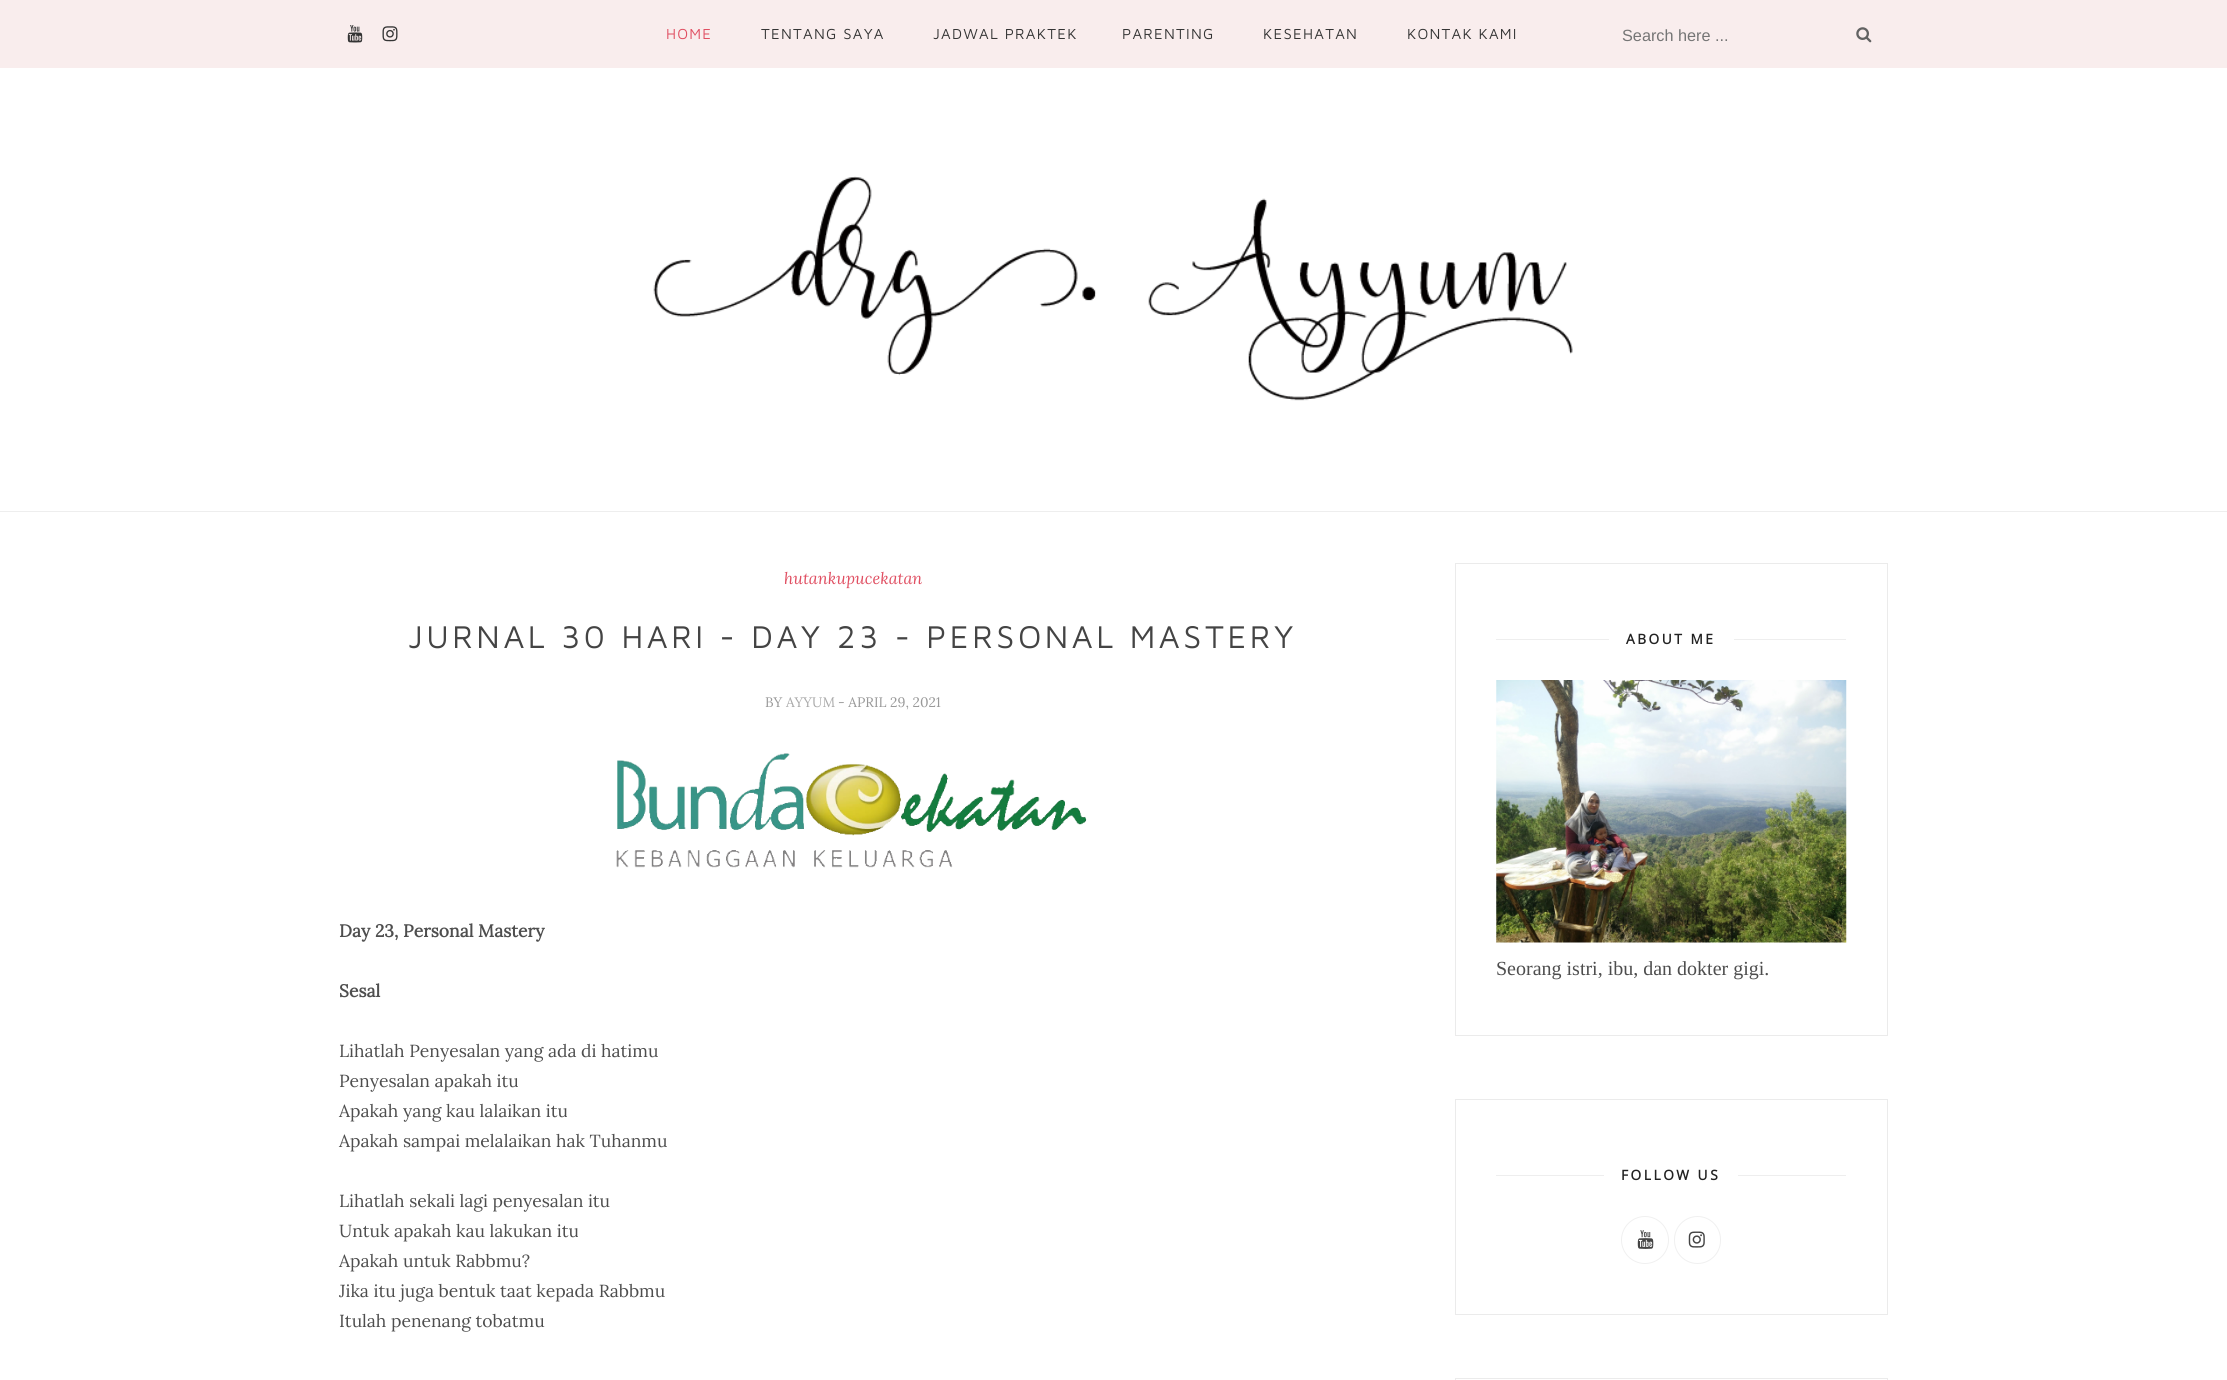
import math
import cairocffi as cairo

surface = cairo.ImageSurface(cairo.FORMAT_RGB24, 2227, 1380)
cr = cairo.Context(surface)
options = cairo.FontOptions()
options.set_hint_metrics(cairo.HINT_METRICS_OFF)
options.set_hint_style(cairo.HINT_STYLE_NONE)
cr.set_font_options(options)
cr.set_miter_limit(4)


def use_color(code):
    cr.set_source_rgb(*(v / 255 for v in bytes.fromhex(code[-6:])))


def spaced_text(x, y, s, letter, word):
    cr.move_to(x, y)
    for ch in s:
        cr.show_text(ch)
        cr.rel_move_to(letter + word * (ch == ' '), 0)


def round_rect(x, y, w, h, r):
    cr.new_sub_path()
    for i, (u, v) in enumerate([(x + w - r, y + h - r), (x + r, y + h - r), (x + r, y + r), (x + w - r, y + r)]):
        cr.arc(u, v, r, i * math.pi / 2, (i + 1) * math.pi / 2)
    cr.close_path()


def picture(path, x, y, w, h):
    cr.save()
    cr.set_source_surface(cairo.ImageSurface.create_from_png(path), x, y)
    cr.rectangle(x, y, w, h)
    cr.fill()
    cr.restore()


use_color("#ffffff")
cr.paint()
use_color("#f9eded")
cr.rectangle(0, 0, 2227, 68)
cr.fill()
picture("img1.png", 347, 25, 16, 18)
picture("img2.png", 382, 26, 16, 16)
cr.select_font_face("Maven Pro")
cr.set_font_size(15)
use_color("#e04f62")
spaced_text(666, 39, "HOME", 1.25, 0)
use_color("#353535")
spaced_text(761, 39, "TENTANG SAYA", 1.25, 0)
spaced_text(933, 39, "JADWAL PRAKTEK", 1.25, 0)
spaced_text(1122, 39, "PARENTING", 1.25, 0)
spaced_text(1263, 39, "KESEHATAN", 1.25, 0)
spaced_text(1407, 39, "KONTAK KAMI", 1.25, 0)
cr.select_font_face("Liberation Sans")
cr.set_font_size(16.25)
use_color("#757575")
cr.move_to(1622, 41)
cr.show_text("Search here ...")
picture("img3.png", 1856, 27, 16, 16)
use_color("#eeeeee")
cr.rectangle(0, 511, 2227, 1)
cr.fill()
picture("img4.png", 653, 176, 920, 225)
cr.select_font_face("Lora", cairo.FONT_SLANT_ITALIC)
use_color("#e04f62")
cr.move_to(784, 584)
cr.show_text("hutankupucekatan")
cr.select_font_face("Maven Pro")
cr.set_font_size(32.5)
use_color("#444444")
spaced_text(408, 648, "JURNAL 30 HARI - DAY 23 - PERSONAL MASTERY", 3.55, 0)
cr.select_font_face("Lora")
cr.set_font_size(13.75)
use_color("#999999")
cr.move_to(765, 707)
cr.show_text("BY")
use_color("#aaaaaa")
cr.move_to(786, 707)
cr.show_text("AYYUM")
use_color("#999999")
cr.move_to(838, 707)
cr.show_text("- APRIL 29, 2021")
picture("img5.png", 616, 753, 471, 115)
cr.select_font_face("Lora", cairo.FONT_SLANT_NORMAL, cairo.FONT_WEIGHT_BOLD)
cr.set_font_size(17.5)
use_color("#4e4e4e")
cr.move_to(339, 937)
cr.show_text("Day 23, Personal Mastery")
cr.move_to(339, 997)
cr.show_text("Sesal")
cr.select_font_face("Lora")
cr.move_to(339, 1057)
cr.show_text("Lihatlah Penyesalan yang ada di hatimu")
cr.move_to(339, 1087)
cr.show_text("Penyesalan apakah itu")
cr.move_to(339, 1117)
cr.show_text("Apakah yang kau lalaikan itu")
cr.move_to(339, 1147)
cr.show_text("Apakah sampai melalaikan hak Tuhanmu")
cr.move_to(339, 1207)
cr.show_text("Lihatlah sekali lagi penyesalan itu")
cr.move_to(339, 1237)
cr.show_text("Untuk apakah kau lakukan itu")
cr.move_to(339, 1267)
cr.show_text("Apakah untuk Rabbmu?")
cr.move_to(339, 1297)
cr.show_text("Jika itu juga bentuk taat kepada Rabbmu")
cr.move_to(339, 1327)
cr.show_text("Itulah penenang tobatmu")
cr.rectangle(1455.5, 563.5, 432, 472)
use_color("#ebebeb")
cr.set_line_width(1)
cr.stroke()
use_color("#eeeeee")
cr.rectangle(1496, 639, 113, 1)
cr.fill()
cr.select_font_face("Open Sans", cairo.FONT_SLANT_NORMAL, cairo.FONT_WEIGHT_BOLD)
cr.set_font_size(13.75)
use_color("#222222")
spaced_text(1626, 644, "ABOUT ME", 2.5, 0)
use_color("#eeeeee")
cr.rectangle(1734, 639, 112, 1)
cr.fill()
picture("img6.png", 1496, 680, 351, 263)
cr.select_font_face("Liberation Serif")
cr.set_font_size(20)
use_color("#4e4e4e")
cr.move_to(1496, 975)
cr.show_text("Seorang istri, ibu, dan dokter gigi.")
cr.rectangle(1455.5, 1099.5, 432, 215)
use_color("#ebebeb")
cr.stroke()
use_color("#eeeeee")
cr.rectangle(1496, 1175, 108, 1)
cr.fill()
cr.select_font_face("Open Sans", cairo.FONT_SLANT_NORMAL, cairo.FONT_WEIGHT_BOLD)
cr.set_font_size(13.75)
use_color("#222222")
spaced_text(1621, 1180, "FOLLOW US", 2.5, 0)
use_color("#eeeeee")
cr.rectangle(1738, 1175, 108, 1)
cr.fill()
cr.arc(1645, 1240, 23.5, 0, 2 * math.pi)
use_color("#f0f0f0")
cr.stroke()
picture("img7.png", 1637, 1230, 17, 19)
round_rect(1674.5, 1216.5, 46, 47, 23)
cr.stroke()
picture("img8.png", 1688, 1231, 17, 17)
cr.rectangle(1455.5, 1378.5, 432, 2)
use_color("#ebebeb")
cr.stroke()
surface.write_to_png("result.png")
